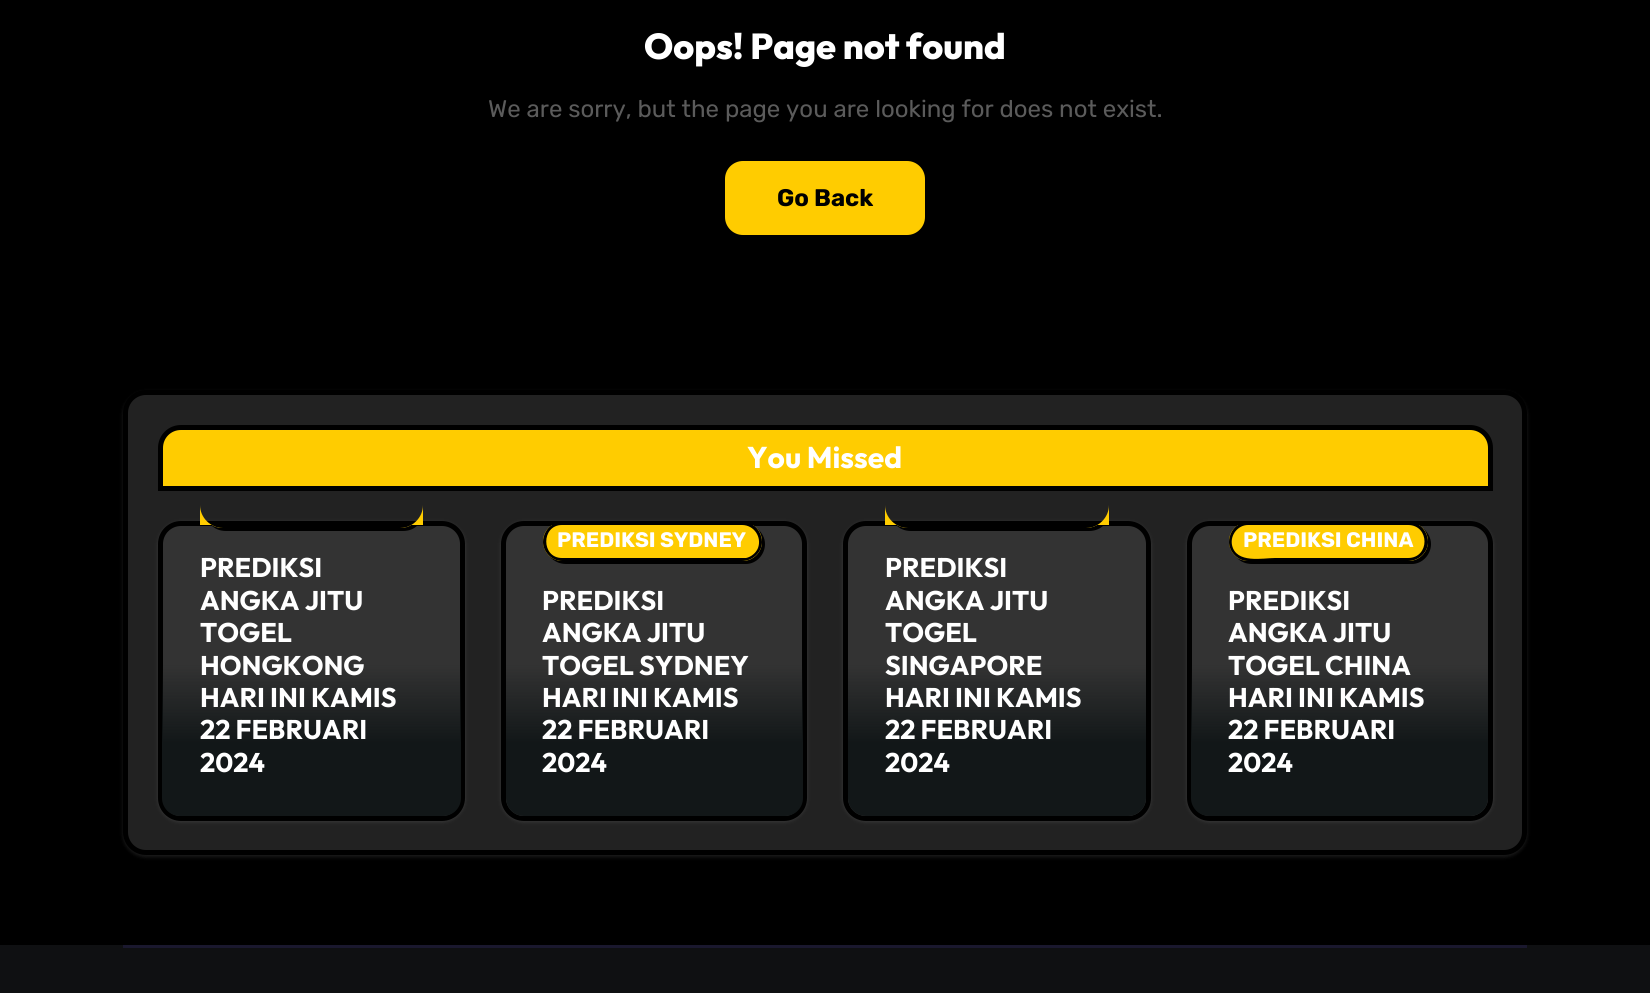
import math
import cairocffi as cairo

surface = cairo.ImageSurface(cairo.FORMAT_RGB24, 1650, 993)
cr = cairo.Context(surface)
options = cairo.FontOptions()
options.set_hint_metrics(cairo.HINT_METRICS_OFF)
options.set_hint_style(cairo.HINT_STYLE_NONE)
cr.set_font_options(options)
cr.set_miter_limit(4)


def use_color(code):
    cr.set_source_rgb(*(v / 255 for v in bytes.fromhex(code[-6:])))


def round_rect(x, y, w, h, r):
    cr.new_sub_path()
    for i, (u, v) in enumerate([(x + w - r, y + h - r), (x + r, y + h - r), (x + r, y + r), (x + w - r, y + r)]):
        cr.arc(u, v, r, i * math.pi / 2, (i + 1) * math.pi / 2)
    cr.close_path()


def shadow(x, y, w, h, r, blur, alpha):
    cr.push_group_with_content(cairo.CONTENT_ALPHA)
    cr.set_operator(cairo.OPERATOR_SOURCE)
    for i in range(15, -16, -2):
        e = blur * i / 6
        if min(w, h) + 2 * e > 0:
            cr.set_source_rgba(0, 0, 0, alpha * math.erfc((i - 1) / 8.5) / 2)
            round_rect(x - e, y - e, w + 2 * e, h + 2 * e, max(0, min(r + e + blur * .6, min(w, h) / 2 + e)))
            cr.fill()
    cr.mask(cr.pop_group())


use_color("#000000")
cr.paint()
cr.select_font_face("Outfit ExtraBold")
cr.set_font_size(36)
use_color("#ffffff")
cr.move_to(644, 59)
cr.show_text("Oops! Page not found")
cr.select_font_face("Rubik Light")
cr.set_font_size(24)
use_color("#5b5b5b")
cr.move_to(488, 117)
cr.show_text("We are sorry, but the page you are looking for does not exist.")
use_color("#ffcc00")
round_rect(722.5, 158.5, 205, 79, 20.5)
cr.fill_preserve()
use_color("#000000")
cr.set_line_width(5)
cr.stroke()
cr.select_font_face("Rubik", cairo.FONT_SLANT_NORMAL, cairo.FONT_WEIGHT_BOLD)
cr.move_to(777, 206)
cr.show_text("Go Back")
use_color("#b9b9b9")
shadow(123, 392, 1404, 465, 23, 2, 0.15)
use_color("#222222")
round_rect(125.5, 392.5, 1399, 460, 20.5)
cr.fill_preserve()
use_color("#000000")
cr.stroke()
use_color("#ffcc00")
cr.new_path()
cr.move_to(181, 427.5)
cr.line_to(1470, 427.5)
cr.curve_to(1481.5, 427.5, 1490.5, 436.5, 1490.5, 448)
cr.line_to(1490.5, 488.5)
cr.line_to(160.5, 488.5)
cr.line_to(160.5, 448)
cr.curve_to(160.5, 436.5, 169.5, 427.5, 181, 427.5)
cr.close_path()
cr.fill_preserve()
use_color("#000000")
cr.stroke()
cr.select_font_face("Outfit", cairo.FONT_SLANT_NORMAL, cairo.FONT_WEIGHT_BOLD)
cr.set_font_size(30)
use_color("#ffffff")
cr.move_to(747, 468)
cr.show_text("You Missed")
use_color("#b9b9b9")
shadow(158, 522, 307, 300, 23, 2, 0.15)
use_color("#333333")
round_rect(160.5, 523.5, 302, 295, 20.5)
cr.fill_preserve()
use_color("#000000")
cr.stroke()
gradient = cairo.LinearGradient(311, 525, 311, 816)
gradient.add_color_stop_rgba(0.48, 0.071, 0.09, 0.094, 0)
gradient.add_color_stop_rgba(0.75, 0.071, 0.09, 0.094, 1)
cr.set_source(gradient)
round_rect(162, 525, 299, 291, 18)
cr.fill()
use_color("#000000")
cr.new_path()
cr.move_to(418, 525)
cr.line_to(412, 525)
cr.curve_to(408, 527, 405, 528, 400, 528)
cr.line_to(222, 528)
cr.curve_to(218, 528, 214, 527, 211, 525)
cr.curve_to(215, 529, 220, 531, 226, 531)
cr.line_to(403, 531)
cr.curve_to(409, 531, 414, 529, 418, 525)
cr.close_path()
cr.fill()
use_color("#ffcc00")
cr.new_path()
cr.move_to(200, 525)
cr.line_to(423, 525)
cr.line_to(423, 505)
cr.curve_to(423, 517.5, 412.5, 528, 400, 528)
cr.line_to(223, 528)
cr.curve_to(210.5, 528, 200, 517.5, 200, 505)
cr.close_path()
cr.fill()
use_color("#000000")
cr.new_path()
cr.move_to(411, 525)
cr.curve_to(408, 527, 404, 528, 400, 528)
cr.line_to(223, 528)
cr.curve_to(219, 528, 215, 527, 212, 525)
cr.close_path()
cr.fill()
cr.set_font_size(27)
use_color("#ffffff")
cr.move_to(200, 577)
cr.show_text("PREDIKSI")
cr.move_to(200, 610)
cr.show_text("ANGKA JITU")
cr.move_to(200, 642)
cr.show_text("TOGEL")
cr.move_to(200, 675)
cr.show_text("HONGKONG")
cr.move_to(200, 707)
cr.show_text("HARI INI KAMIS")
cr.move_to(200, 739)
cr.show_text("22 FEBRUARI")
cr.move_to(200, 772)
cr.show_text("2024")
use_color("#b9b9b9")
shadow(501, 522, 306, 300, 23, 2, 0.15)
use_color("#333333")
round_rect(503.5, 523.5, 301, 295, 20.5)
cr.fill_preserve()
use_color("#000000")
cr.stroke()
gradient = cairo.LinearGradient(654, 525, 654, 816)
gradient.add_color_stop_rgba(0.48, 0.071, 0.09, 0.094, 0)
gradient.add_color_stop_rgba(0.75, 0.071, 0.09, 0.094, 1)
cr.set_source(gradient)
round_rect(506, 525, 297, 291, 18)
cr.fill()
use_color("#000000")
cr.new_path()
cr.move_to(550, 557)
cr.curve_to(554, 561, 559, 564, 566, 564)
cr.line_to(746, 564)
cr.curve_to(756, 564, 765, 555, 765, 544)
cr.curve_to(765, 538, 762, 533, 758, 529)
cr.curve_to(760, 533, 762, 537, 762, 542)
cr.curve_to(762, 552, 753, 561, 742, 561)
cr.line_to(562, 561)
cr.curve_to(558, 561, 554, 559, 550, 557)
cr.close_path()
cr.fill()
cr.save()
round_rect(506, 525, 297, 291, 18)
cr.clip()
use_color("#ffcc00")
round_rect(543, 522, 219, 39, 19.5)
cr.fill()
cr.restore()
cr.new_path()
cr.move_to(562, 525)
cr.curve_to(541, 525, 541, 558, 562, 558)
cr.line_to(746, 558)
cr.curve_to(751, 557, 756, 553, 758, 548)
cr.curve_to(762, 537, 754, 525, 742, 525)
cr.line_to(753, 525)
cr.curve_to(758, 528, 762, 535, 762, 542)
cr.curve_to(762, 552, 753, 561, 742, 561)
cr.line_to(562, 561)
cr.curve_to(552, 561, 543, 552, 543, 542)
cr.curve_to(543, 535, 547, 528, 552, 525)
cr.close_path()
cr.fill()
cr.select_font_face("Rubik", cairo.FONT_SLANT_NORMAL, cairo.FONT_WEIGHT_BOLD)
cr.set_font_size(21)
use_color("#ffffff")
cr.move_to(557, 547)
cr.show_text("PREDIKSI SYDNEY")
cr.select_font_face("Outfit", cairo.FONT_SLANT_NORMAL, cairo.FONT_WEIGHT_BOLD)
cr.set_font_size(27)
cr.move_to(542, 610)
cr.show_text("PREDIKSI")
cr.move_to(542, 642)
cr.show_text("ANGKA JITU")
cr.move_to(542, 675)
cr.show_text("TOGEL SYDNEY")
cr.move_to(542, 707)
cr.show_text("HARI INI KAMIS")
cr.move_to(542, 739)
cr.show_text("22 FEBRUARI")
cr.move_to(542, 772)
cr.show_text("2024")
use_color("#b9b9b9")
shadow(843, 522, 308, 300, 23, 2, 0.15)
use_color("#333333")
round_rect(845.5, 523.5, 303, 295, 20.5)
cr.fill_preserve()
use_color("#000000")
cr.stroke()
gradient = cairo.LinearGradient(997, 525, 997, 816)
gradient.add_color_stop_rgba(0.48, 0.071, 0.09, 0.094, 0)
gradient.add_color_stop_rgba(0.75, 0.071, 0.09, 0.094, 1)
cr.set_source(gradient)
round_rect(848, 525, 298, 291, 18)
cr.fill()
use_color("#000000")
cr.new_path()
cr.move_to(1104, 525)
cr.line_to(1097, 525)
cr.curve_to(1094, 527, 1090, 528, 1086, 528)
cr.line_to(908, 528)
cr.curve_to(903, 528, 900, 527, 896, 525)
cr.curve_to(900, 529, 905, 531, 911, 531)
cr.line_to(1089, 531)
cr.curve_to(1095, 531, 1100, 529, 1104, 525)
cr.close_path()
cr.fill()
use_color("#ffcc00")
cr.new_path()
cr.move_to(885, 525)
cr.line_to(1109, 525)
cr.line_to(1109, 505)
cr.curve_to(1109, 517.5, 1098.5, 528, 1086, 528)
cr.line_to(908, 528)
cr.curve_to(895.5, 528, 885, 517.5, 885, 505)
cr.close_path()
cr.fill()
use_color("#000000")
cr.new_path()
cr.move_to(1097, 525)
cr.curve_to(1094, 527, 1090, 528, 1086, 528)
cr.line_to(908, 528)
cr.curve_to(904, 528, 900, 527, 897, 525)
cr.close_path()
cr.fill()
use_color("#ffffff")
cr.move_to(885, 577)
cr.show_text("PREDIKSI")
cr.move_to(885, 610)
cr.show_text("ANGKA JITU")
cr.move_to(885, 642)
cr.show_text("TOGEL")
cr.move_to(885, 675)
cr.show_text("SINGAPORE")
cr.move_to(885, 707)
cr.show_text("HARI INI KAMIS")
cr.move_to(885, 739)
cr.show_text("22 FEBRUARI")
cr.move_to(885, 772)
cr.show_text("2024")
use_color("#b9b9b9")
shadow(1187, 522, 306, 300, 23, 2, 0.15)
use_color("#333333")
round_rect(1189.5, 523.5, 301, 295, 20.5)
cr.fill_preserve()
use_color("#000000")
cr.stroke()
gradient = cairo.LinearGradient(1340, 525, 1340, 816)
gradient.add_color_stop_rgba(0.48, 0.071, 0.09, 0.094, 0)
gradient.add_color_stop_rgba(0.75, 0.071, 0.09, 0.094, 1)
cr.set_source(gradient)
round_rect(1191, 525, 297, 291, 18)
cr.fill()
use_color("#000000")
cr.new_path()
cr.move_to(1237, 558)
cr.curve_to(1241, 562, 1246, 564, 1252, 564)
cr.line_to(1412, 564)
cr.curve_to(1422, 564, 1431, 555, 1431, 544)
cr.curve_to(1431, 538, 1428, 533, 1424, 529)
cr.curve_to(1426, 533, 1428, 537, 1428, 542)
cr.curve_to(1428, 552, 1419, 561, 1408, 561)
cr.line_to(1248, 561)
cr.curve_to(1244, 561, 1240, 560, 1237, 558)
cr.close_path()
cr.fill()
cr.save()
round_rect(1191, 525, 297, 291, 18)
cr.clip()
use_color("#ffcc00")
round_rect(1229, 522, 199, 39, 19.5)
cr.fill()
cr.restore()
cr.new_path()
cr.move_to(1248, 525)
cr.curve_to(1238, 525, 1230, 535, 1232, 545)
cr.curve_to(1236, 564, 1263, 558, 1275, 558)
cr.line_to(1408, 558)
cr.curve_to(1430, 558, 1430, 525, 1408, 525)
cr.line_to(1419, 525)
cr.curve_to(1424, 528, 1428, 535, 1428, 542)
cr.curve_to(1428, 552, 1419, 561, 1408, 561)
cr.line_to(1248, 561)
cr.curve_to(1238, 561, 1229, 552, 1229, 542)
cr.curve_to(1229, 535, 1233, 528, 1238, 525)
cr.close_path()
cr.fill()
cr.select_font_face("Rubik", cairo.FONT_SLANT_NORMAL, cairo.FONT_WEIGHT_BOLD)
cr.set_font_size(21)
use_color("#ffffff")
cr.move_to(1243, 547)
cr.show_text("PREDIKSI CHINA")
cr.select_font_face("Outfit", cairo.FONT_SLANT_NORMAL, cairo.FONT_WEIGHT_BOLD)
cr.set_font_size(27)
cr.move_to(1228, 610)
cr.show_text("PREDIKSI")
cr.move_to(1228, 642)
cr.show_text("ANGKA JITU")
cr.move_to(1228, 675)
cr.show_text("TOGEL CHINA")
cr.move_to(1228, 707)
cr.show_text("HARI INI KAMIS")
cr.move_to(1228, 739)
cr.show_text("22 FEBRUARI")
cr.move_to(1228, 772)
cr.show_text("2024")
use_color("#0f1012")
cr.rectangle(0, 945, 1650, 48)
cr.fill()
use_color("#1a182e")
cr.rectangle(123, 945, 1404, 3)
cr.fill()
surface.write_to_png("result.png")
